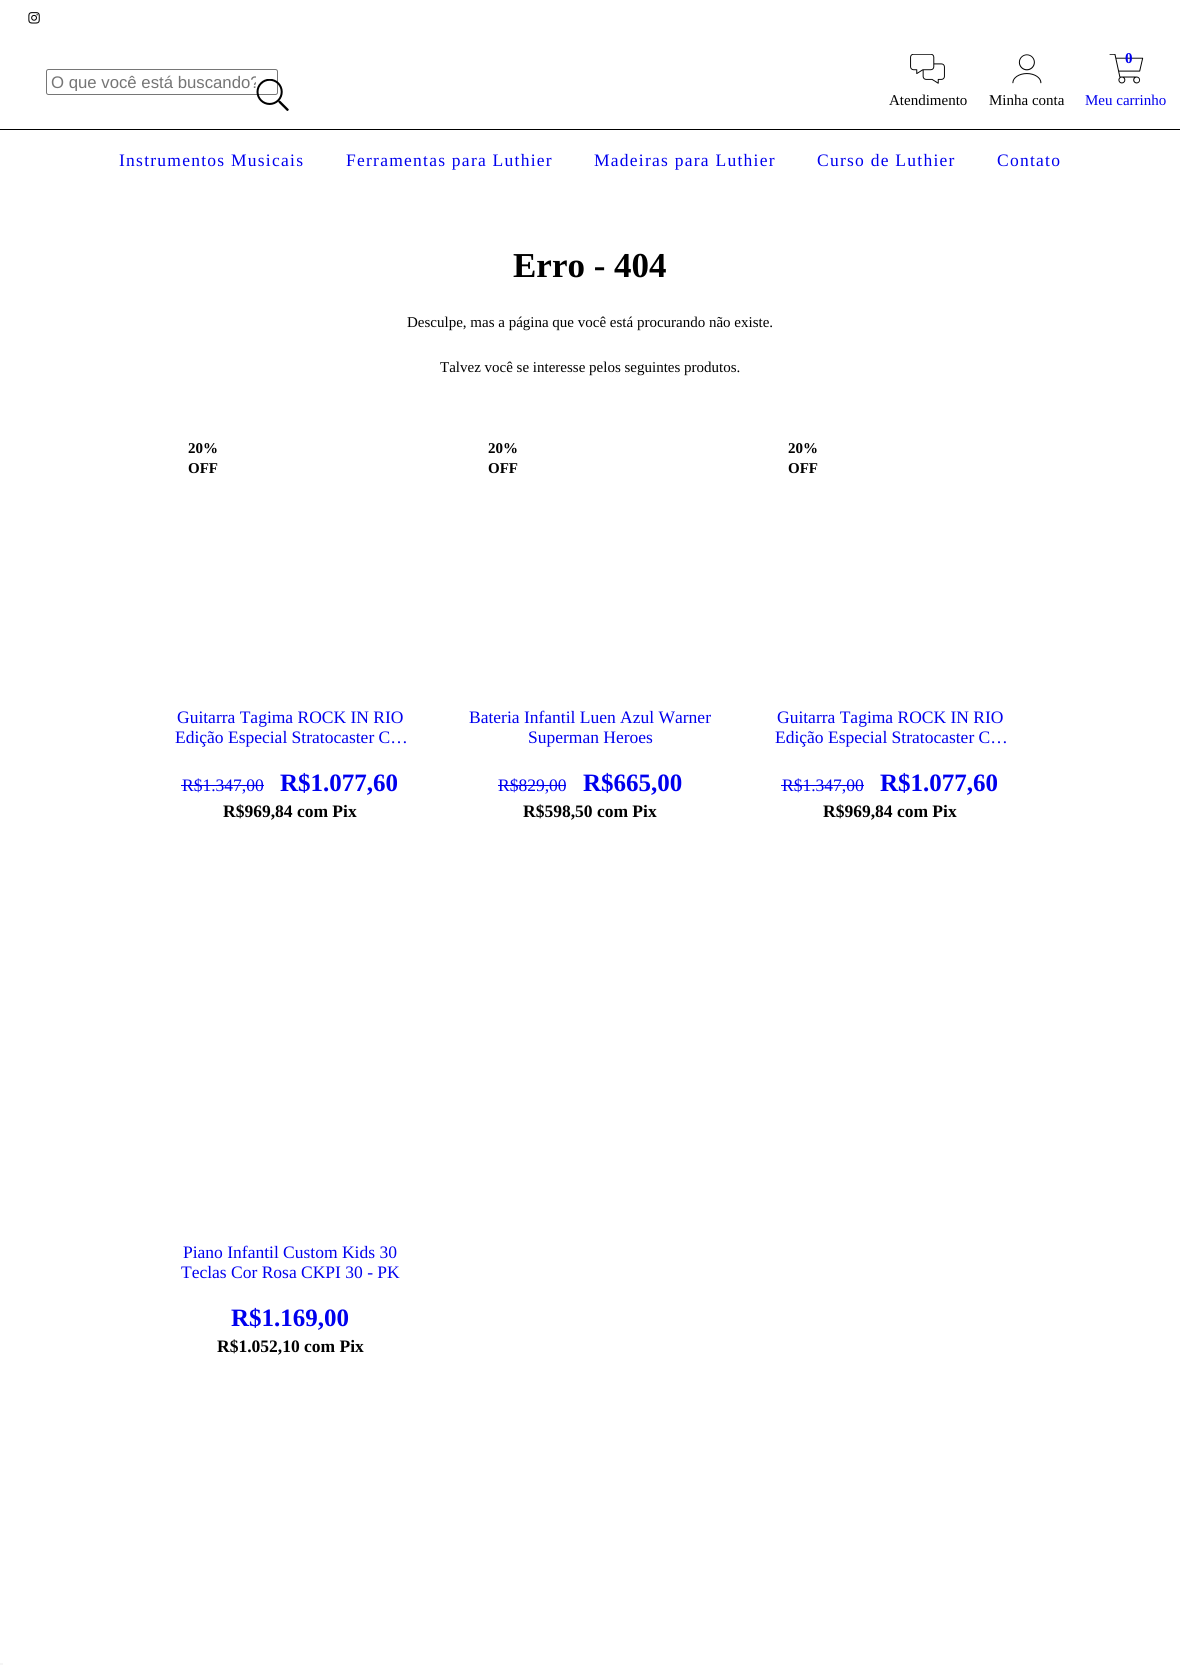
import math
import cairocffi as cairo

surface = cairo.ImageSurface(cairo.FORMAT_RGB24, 1180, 1665)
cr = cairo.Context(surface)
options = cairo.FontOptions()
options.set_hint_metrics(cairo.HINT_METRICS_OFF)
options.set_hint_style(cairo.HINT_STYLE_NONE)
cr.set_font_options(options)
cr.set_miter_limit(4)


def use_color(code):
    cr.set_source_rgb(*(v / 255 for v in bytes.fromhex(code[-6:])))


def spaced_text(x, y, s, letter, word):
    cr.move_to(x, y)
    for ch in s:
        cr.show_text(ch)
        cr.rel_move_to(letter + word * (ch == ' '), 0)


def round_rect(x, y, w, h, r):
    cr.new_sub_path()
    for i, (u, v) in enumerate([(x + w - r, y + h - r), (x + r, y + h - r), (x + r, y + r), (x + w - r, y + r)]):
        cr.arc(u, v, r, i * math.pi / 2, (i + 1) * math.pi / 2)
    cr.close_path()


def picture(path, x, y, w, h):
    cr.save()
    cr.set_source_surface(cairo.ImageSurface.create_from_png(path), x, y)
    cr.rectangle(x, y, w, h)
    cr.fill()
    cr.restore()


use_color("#ffffff")
cr.paint()
picture("img1.png", 28, 12, 12, 12)
round_rect(46.5, 69.5, 231, 25, 2)
use_color("#767676")
cr.set_line_width(1)
cr.stroke()
cr.save()
cr.rectangle(51, 73, 205, 18)
cr.clip()
cr.select_font_face("Liberation Sans")
cr.set_font_size(16.75)
use_color("#757575")
cr.move_to(51, 88)
cr.show_text("O que você está buscando?")
cr.restore()
picture("img2.png", 256, 79, 33, 32)
picture("img3.png", 910, 54, 35, 30)
cr.select_font_face("Liberation Serif")
cr.set_font_size(15)
use_color("#000000")
cr.move_to(889, 105)
cr.show_text("Atendimento")
picture("img4.png", 1012, 54, 30, 30)
cr.move_to(989, 105)
cr.show_text("Minha conta")
picture("img5.png", 1109, 54, 35, 30)
cr.select_font_face("Liberation Serif", cairo.FONT_SLANT_NORMAL, cairo.FONT_WEIGHT_BOLD)
use_color("#0000ee")
cr.move_to(1125, 63)
cr.show_text("0")
cr.select_font_face("Liberation Serif")
cr.move_to(1085, 105)
cr.show_text("Meu carrinho")
use_color("#000000")
cr.rectangle(0, 129, 1180, 1)
cr.fill()
cr.set_font_size(17.5)
use_color("#0000ee")
spaced_text(119, 166, "Instrumentos Musicais", 1.25, 0)
spaced_text(346, 166, "Ferramentas para Luthier", 1.25, 0)
spaced_text(594, 166, "Madeiras para Luthier", 1.25, 0)
spaced_text(817, 166, "Curso de Luthier", 1.25, 0)
spaced_text(997, 166, "Contato", 1.25, 0)
cr.select_font_face("Liberation Serif", cairo.FONT_SLANT_NORMAL, cairo.FONT_WEIGHT_BOLD)
cr.set_font_size(35)
use_color("#000000")
cr.move_to(513, 277)
cr.show_text("Erro - 404")
cr.select_font_face("Liberation Serif")
cr.set_font_size(15)
cr.move_to(407, 327)
cr.show_text("Desculpe, mas a página que você está procurando não existe.")
cr.move_to(440, 372)
cr.show_text("Talvez você se interesse pelos seguintes produtos.")
cr.select_font_face("Liberation Serif", cairo.FONT_SLANT_NORMAL, cairo.FONT_WEIGHT_BOLD)
cr.move_to(188, 453)
cr.show_text("20%")
cr.move_to(188, 473)
cr.show_text("OFF")
cr.select_font_face("Liberation Serif")
cr.set_font_size(17.5)
use_color("#0000ee")
cr.move_to(177, 723)
cr.show_text("Guitarra Tagima ROCK IN RIO")
cr.move_to(175, 743)
cr.show_text("Edição Especial Stratocaster C…")
cr.move_to(182, 791)
cr.show_text("R$1.347,00")
cr.rectangle(181, 785, 83, 1)
cr.fill()
cr.select_font_face("Liberation Serif", cairo.FONT_SLANT_NORMAL, cairo.FONT_WEIGHT_BOLD)
cr.set_font_size(25)
cr.move_to(280, 791)
cr.show_text("R$1.077,60")
cr.set_font_size(17.5)
use_color("#000000")
cr.move_to(223, 817)
cr.show_text("R$969,84 com Pix")
cr.set_font_size(15)
cr.move_to(488, 453)
cr.show_text("20%")
cr.move_to(488, 473)
cr.show_text("OFF")
cr.select_font_face("Liberation Serif")
cr.set_font_size(17.5)
use_color("#0000ee")
cr.move_to(469, 723)
cr.show_text("Bateria Infantil Luen Azul Warner")
cr.move_to(528, 743)
cr.show_text("Superman Heroes")
cr.move_to(498, 791)
cr.show_text("R$829,00")
cr.rectangle(498, 785, 68, 1)
cr.fill()
cr.select_font_face("Liberation Serif", cairo.FONT_SLANT_NORMAL, cairo.FONT_WEIGHT_BOLD)
cr.set_font_size(25)
cr.move_to(583, 791)
cr.show_text("R$665,00")
cr.set_font_size(17.5)
use_color("#000000")
cr.move_to(523, 817)
cr.show_text("R$598,50 com Pix")
cr.set_font_size(15)
cr.move_to(788, 453)
cr.show_text("20%")
cr.move_to(788, 473)
cr.show_text("OFF")
cr.select_font_face("Liberation Serif")
cr.set_font_size(17.5)
use_color("#0000ee")
cr.move_to(777, 723)
cr.show_text("Guitarra Tagima ROCK IN RIO")
cr.move_to(775, 743)
cr.show_text("Edição Especial Stratocaster C…")
cr.move_to(782, 791)
cr.show_text("R$1.347,00")
cr.rectangle(781, 785, 83, 1)
cr.fill()
cr.select_font_face("Liberation Serif", cairo.FONT_SLANT_NORMAL, cairo.FONT_WEIGHT_BOLD)
cr.set_font_size(25)
cr.move_to(880, 791)
cr.show_text("R$1.077,60")
cr.set_font_size(17.5)
use_color("#000000")
cr.move_to(823, 817)
cr.show_text("R$969,84 com Pix")
cr.select_font_face("Liberation Serif")
use_color("#0000ee")
cr.move_to(183, 1258)
cr.show_text("Piano Infantil Custom Kids 30")
cr.move_to(181, 1278)
cr.show_text("Teclas Cor Rosa CKPI 30 - PK")
cr.select_font_face("Liberation Serif", cairo.FONT_SLANT_NORMAL, cairo.FONT_WEIGHT_BOLD)
cr.set_font_size(25)
cr.move_to(231, 1326)
cr.show_text("R$1.169,00")
cr.set_font_size(17.5)
use_color("#000000")
cr.move_to(217, 1352)
cr.show_text("R$1.052,10 com Pix")
use_color("#f5f5f5")
cr.rectangle(0, 1663, 3, 2)
cr.fill()
surface.write_to_png("result.png")
